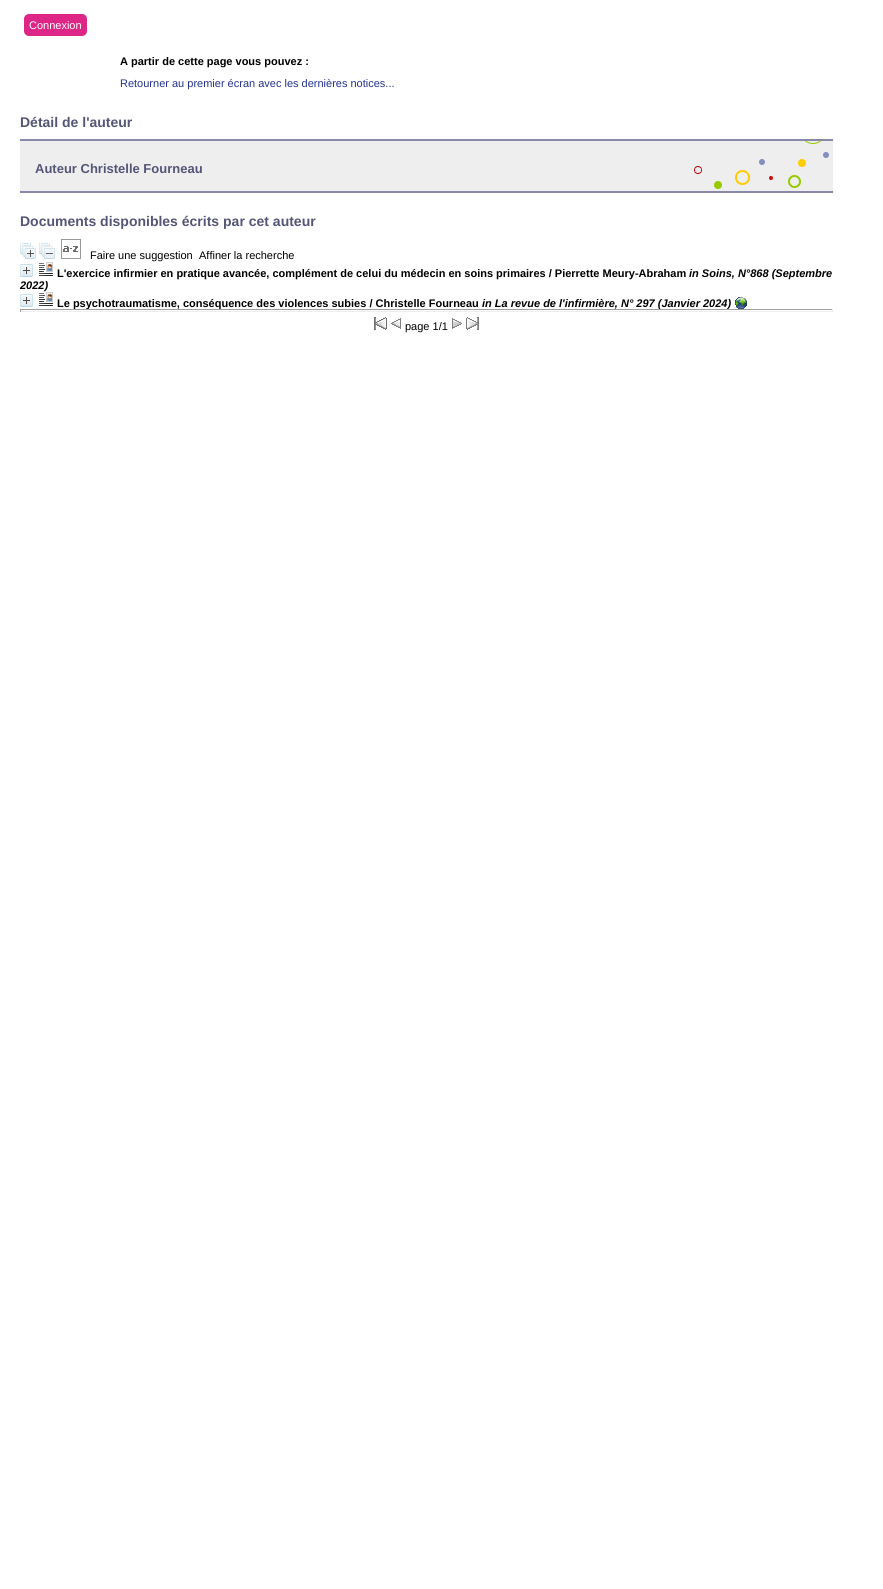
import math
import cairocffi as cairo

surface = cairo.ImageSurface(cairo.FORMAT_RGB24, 883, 1589)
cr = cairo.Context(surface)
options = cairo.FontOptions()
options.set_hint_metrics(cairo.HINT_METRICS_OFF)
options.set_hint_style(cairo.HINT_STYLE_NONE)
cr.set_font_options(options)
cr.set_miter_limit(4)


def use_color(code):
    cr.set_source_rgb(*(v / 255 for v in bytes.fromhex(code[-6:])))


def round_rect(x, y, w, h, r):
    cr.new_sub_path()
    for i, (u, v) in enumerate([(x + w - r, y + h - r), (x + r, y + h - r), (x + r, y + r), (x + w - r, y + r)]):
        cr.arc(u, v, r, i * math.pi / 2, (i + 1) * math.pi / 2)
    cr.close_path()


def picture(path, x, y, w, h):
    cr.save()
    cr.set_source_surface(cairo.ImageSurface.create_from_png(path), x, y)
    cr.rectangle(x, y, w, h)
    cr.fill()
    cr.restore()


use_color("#ffffff")
cr.paint()
use_color("#de2687")
round_rect(24, 14, 63, 22, 5)
cr.fill()
cr.select_font_face("Liberation Sans")
cr.set_font_size(11)
use_color("#ffffff")
cr.move_to(29, 29)
cr.show_text("Connexion")
cr.select_font_face("Liberation Sans", cairo.FONT_SLANT_NORMAL, cairo.FONT_WEIGHT_BOLD)
use_color("#000000")
cr.move_to(120, 65)
cr.show_text("A partir de cette page vous pouvez :")
cr.select_font_face("Liberation Sans")
use_color("#23338f")
cr.move_to(120, 87)
cr.show_text("Retourner au premier écran avec les dernières notices...")
cr.select_font_face("Liberation Sans", cairo.FONT_SLANT_NORMAL, cairo.FONT_WEIGHT_BOLD)
cr.set_font_size(14)
use_color("#555577")
cr.move_to(20, 127)
cr.show_text("Détail de l'auteur")
use_color("#eeeeee")
cr.rectangle(20, 141, 813, 50)
cr.fill()
picture("img1.png", 694, 141, 135, 48)
use_color("#8888aa")
cr.rectangle(20, 139, 813, 2)
cr.fill()
cr.rectangle(20, 191, 813, 2)
cr.fill()
cr.set_font_size(13)
use_color("#555577")
cr.move_to(35, 173)
cr.show_text("Auteur Christelle Fourneau")
cr.set_font_size(14)
cr.move_to(20, 226)
cr.show_text("Documents disponibles écrits par cet auteur")
picture("img2.png", 20, 243, 16, 16)
picture("img3.png", 39, 243, 16, 16)
picture("img4.png", 61, 239, 20, 20)
cr.select_font_face("Liberation Sans")
cr.set_font_size(11)
use_color("#000000")
cr.move_to(90, 259)
cr.show_text("Faire une suggestion")
cr.move_to(199, 259)
cr.show_text("Affiner la recherche")
picture("img5.png", 20, 264, 13, 13)
picture("img6.png", 39, 262, 14, 14)
cr.select_font_face("Liberation Sans", cairo.FONT_SLANT_NORMAL, cairo.FONT_WEIGHT_BOLD)
cr.move_to(57, 277)
cr.show_text("L'exercice infirmier en pratique avancée, complément de celui du médecin en soins primaires / Pierrette Meury-Abraham")
cr.select_font_face("Liberation Sans", cairo.FONT_SLANT_ITALIC, cairo.FONT_WEIGHT_BOLD)
cr.move_to(689, 277)
cr.show_text("in Soins, N°868 (Septembre")
cr.move_to(20, 289)
cr.show_text("2022)")
picture("img5.png", 20, 294, 13, 13)
picture("img6.png", 39, 292, 14, 14)
cr.select_font_face("Liberation Sans", cairo.FONT_SLANT_NORMAL, cairo.FONT_WEIGHT_BOLD)
cr.move_to(57, 307)
cr.show_text("Le psychotraumatisme, conséquence des violences subies / Christelle Fourneau")
cr.select_font_face("Liberation Sans", cairo.FONT_SLANT_ITALIC, cairo.FONT_WEIGHT_BOLD)
cr.move_to(482, 307)
cr.show_text("in La revue de l'infirmière, N° 297 (Janvier 2024)")
picture("img7.png", 735, 297, 12, 12)
use_color("#9f9f9f")
cr.rectangle(20, 309, 813, 1)
cr.fill()
use_color("#eeeeee")
cr.rectangle(832, 309, 1, 3)
cr.fill()
cr.rectangle(20, 311, 813, 1)
cr.fill()
use_color("#9f9f9f")
cr.rectangle(20, 309, 1, 3)
cr.fill()
picture("img8.png", 374, 317, 13, 13)
picture("img9.png", 391, 318, 10, 11)
cr.select_font_face("Liberation Sans")
use_color("#000000")
cr.move_to(405, 330)
cr.show_text("page 1/1")
picture("img10.png", 452, 318, 10, 11)
picture("img11.png", 466, 317, 13, 13)
surface.write_to_png("result.png")
